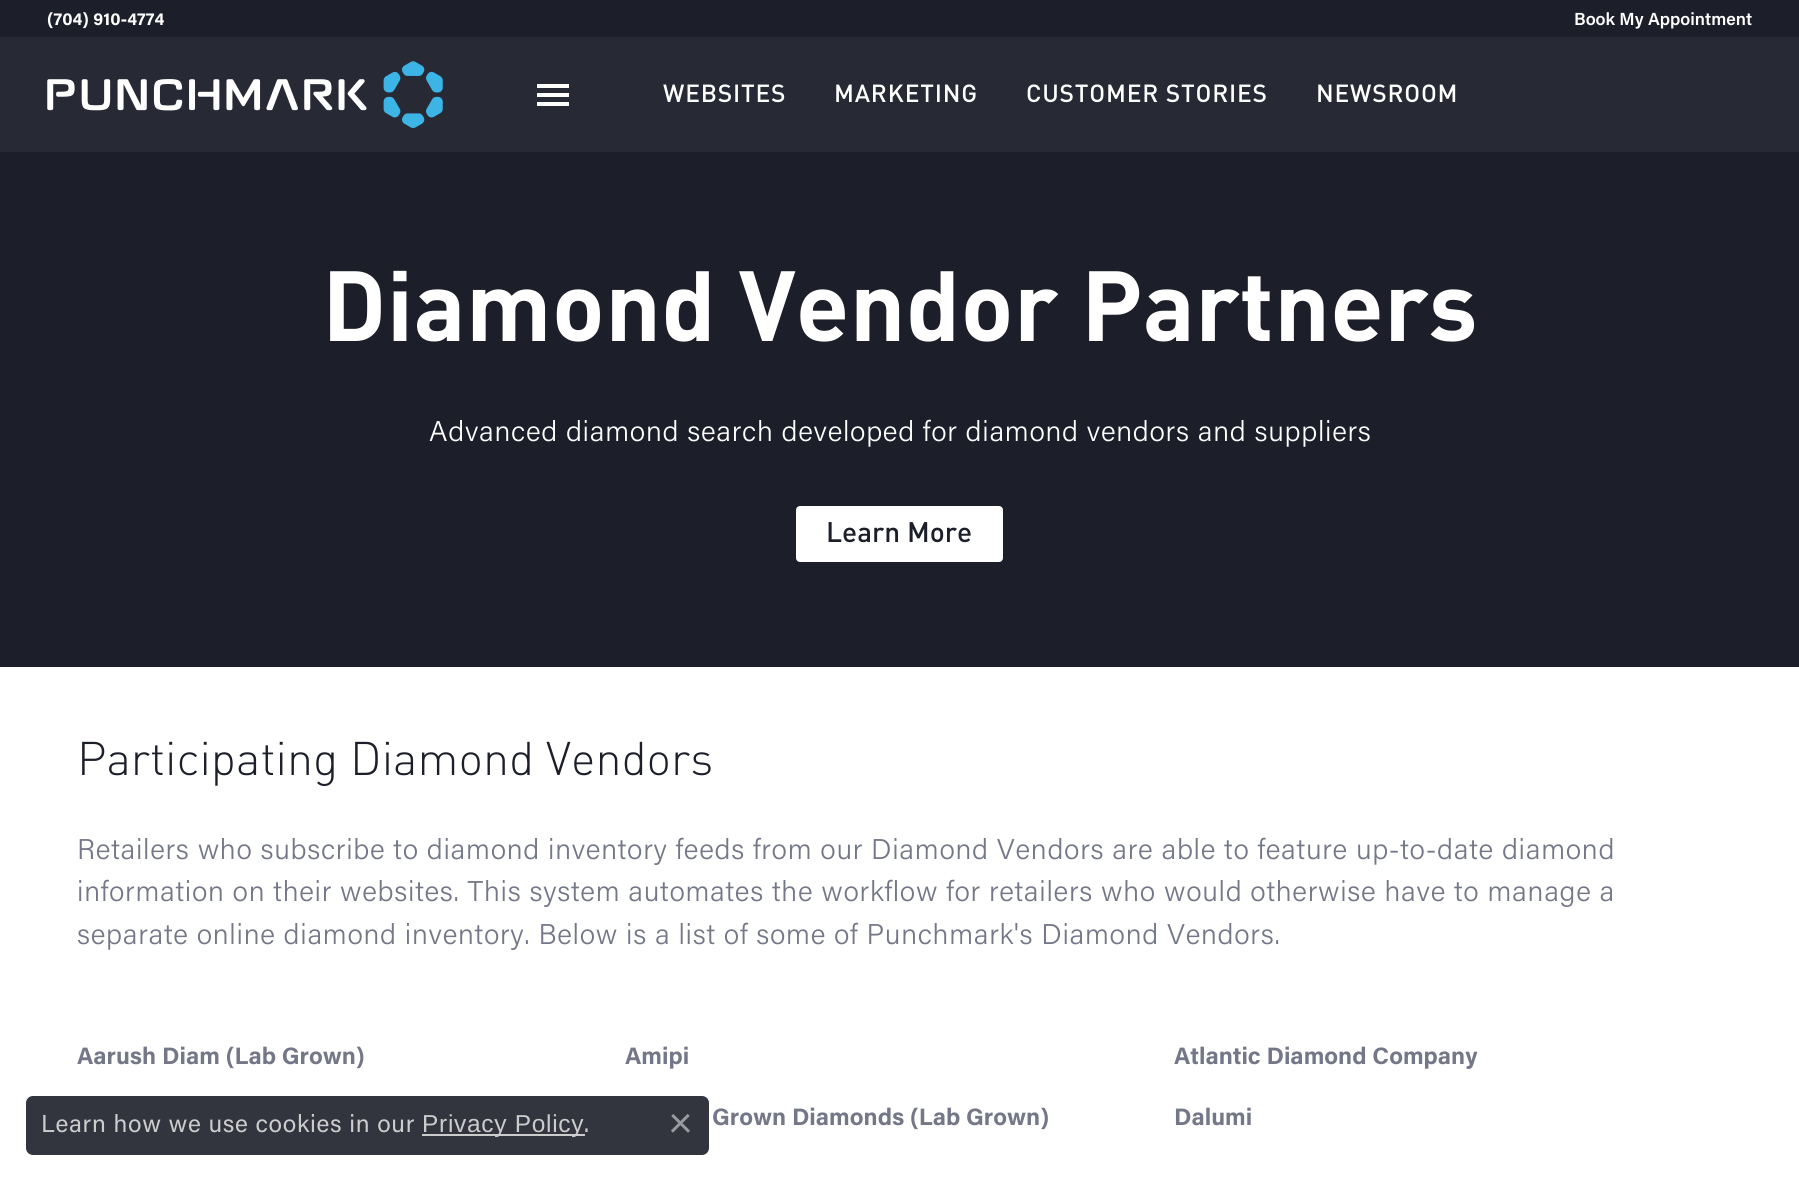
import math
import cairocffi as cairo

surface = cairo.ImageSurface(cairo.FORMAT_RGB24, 1799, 1180)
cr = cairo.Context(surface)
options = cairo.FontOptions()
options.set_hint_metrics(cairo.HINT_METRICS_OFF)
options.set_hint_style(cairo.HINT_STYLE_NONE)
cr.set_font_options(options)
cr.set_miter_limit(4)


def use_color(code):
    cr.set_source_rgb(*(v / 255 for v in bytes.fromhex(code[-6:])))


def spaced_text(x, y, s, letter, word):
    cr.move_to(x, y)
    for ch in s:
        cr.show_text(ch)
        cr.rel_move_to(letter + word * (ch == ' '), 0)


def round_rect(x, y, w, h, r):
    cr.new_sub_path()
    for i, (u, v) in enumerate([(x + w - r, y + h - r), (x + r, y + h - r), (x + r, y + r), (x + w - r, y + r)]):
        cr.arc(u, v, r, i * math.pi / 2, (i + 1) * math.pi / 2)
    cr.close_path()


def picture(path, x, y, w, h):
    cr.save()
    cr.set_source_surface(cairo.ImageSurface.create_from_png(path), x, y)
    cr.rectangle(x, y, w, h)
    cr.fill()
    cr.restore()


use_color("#1c1e29")
cr.paint()
cr.select_font_face("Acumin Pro", cairo.FONT_SLANT_NORMAL, cairo.FONT_WEIGHT_BOLD)
cr.set_font_size(17.5)
use_color("#ffffff")
cr.move_to(47, 25)
cr.show_text("(704) 910-4774")
cr.select_font_face("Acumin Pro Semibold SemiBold")
cr.move_to(1574, 25)
cr.show_text("Book My Appointment")
use_color("#272934")
cr.rectangle(0, 37, 1799, 115)
cr.fill()
picture("img1.png", 47, 61, 396, 67)
use_color("#ffffff")
cr.rectangle(537, 84, 32, 4)
cr.fill()
cr.rectangle(537, 93, 32, 4)
cr.fill()
cr.rectangle(537, 102, 32, 4)
cr.fill()
cr.select_font_face("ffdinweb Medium")
cr.set_font_size(24.5)
spaced_text(663, 102, "WEBSITES", 0.8, 0)
spaced_text(834, 102, "MARKETING", 0.8, 0)
spaced_text(1026, 102, "CUSTOMER STORIES", 0.8, 0)
spaced_text(1316, 102, "NEWSROOM", 0.8, 0)
cr.select_font_face("ffdinweb", cairo.FONT_SLANT_NORMAL, cairo.FONT_WEIGHT_BOLD)
cr.set_font_size(98)
cr.move_to(322, 341)
cr.show_text("Diamond Vendor Partners")
cr.select_font_face("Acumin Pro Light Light")
cr.set_font_size(28.57)
spaced_text(429, 441, "Advanced diamond search developed for diamond vendors and suppliers", 0.7, 0)
round_rect(797, 507, 205, 54, 3)
cr.fill_preserve()
cr.stroke()
cr.select_font_face("ffdinweb Medium")
cr.set_font_size(28)
use_color("#1c1e29")
cr.move_to(826, 542)
cr.show_text("Learn More")
use_color("#ffffff")
cr.rectangle(0, 667, 1799, 513)
cr.fill()
cr.select_font_face("ffdinweb")
cr.set_font_size(46.6)
use_color("#1c1e29")
cr.move_to(77, 775)
cr.show_text("Participating Diamond Vendors")
cr.select_font_face("Acumin Pro Light Light")
cr.set_font_size(28.57)
use_color("#747788")
spaced_text(77, 859, "Retailers who subscribe to diamond inventory feeds from our Diamond Vendors are able to feature up-to-date diamond", 0.7, 0)
spaced_text(77, 901, "information on their websites. This system automates the workflow for retailers who would otherwise have to manage a", 0.7, 0)
spaced_text(77, 944, "separate online diamond inventory. Below is a list of some of Punchmark's Diamond Vendors.", 0.7, 0)
cr.select_font_face("Acumin Pro", cairo.FONT_SLANT_NORMAL, cairo.FONT_WEIGHT_BOLD)
cr.set_font_size(23.75)
cr.move_to(77, 1064)
cr.show_text("Aarush Diam (Lab Grown)")
cr.move_to(625, 1064)
cr.show_text("Amipi")
cr.move_to(1174, 1064)
cr.show_text("Atlantic Diamond Company")
cr.move_to(712, 1125)
cr.show_text("Grown Diamonds (Lab Grown)")
cr.move_to(1174, 1125)
cr.show_text("Dalumi")
cr.set_source_rgba(0.11, 0.118, 0.161, 0.9)
round_rect(26, 1096, 683, 59, 7)
cr.fill()
cr.select_font_face("Acumin Pro")
cr.set_font_size(24.5)
use_color("#cccccc")
spaced_text(41, 1132, "Learn how we use cookies in our", 0.7, 0)
cr.rectangle(422, 1134, 163, 2)
cr.fill()
cr.select_font_face("Liberation Sans")
spaced_text(422, 1132, "Privacy Policy", 0.7, 0)
cr.select_font_face("Acumin Pro")
spaced_text(584, 1132, ".", 0.7, 0)
picture("img2.png", 671, 1114, 19, 19)
surface.write_to_png("result.png")
